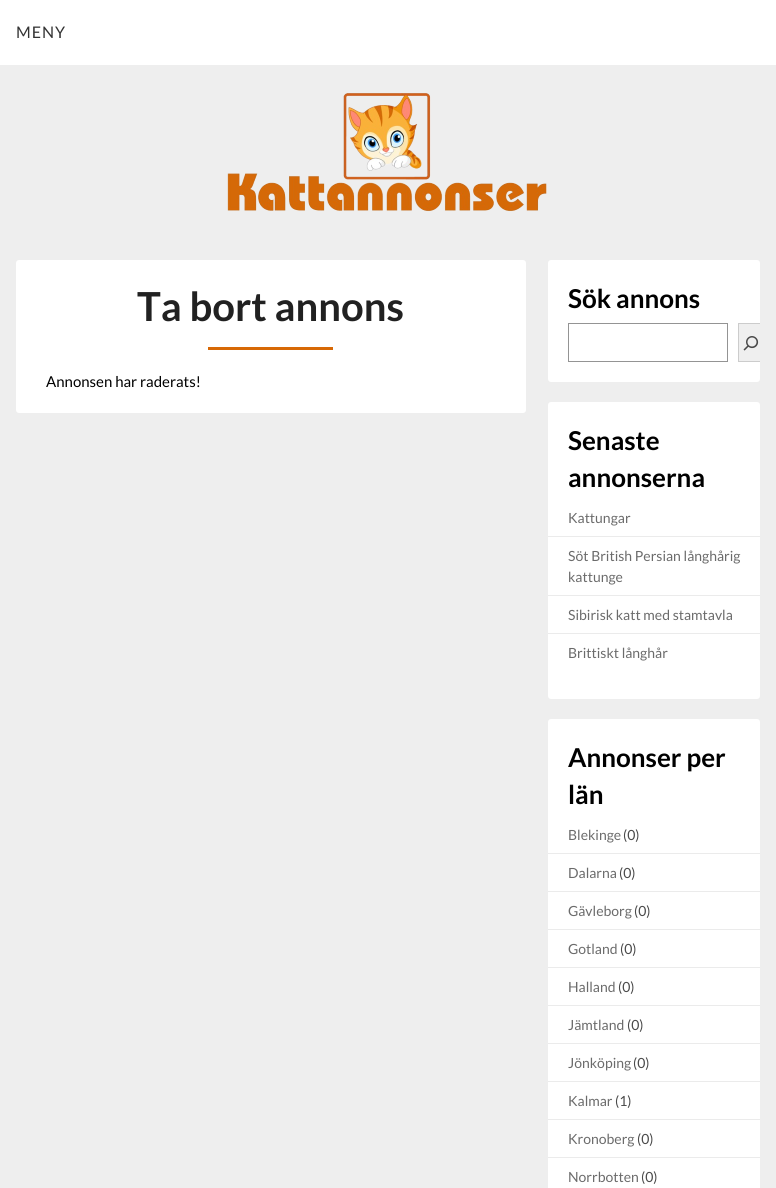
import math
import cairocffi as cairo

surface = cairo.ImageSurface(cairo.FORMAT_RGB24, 776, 1188)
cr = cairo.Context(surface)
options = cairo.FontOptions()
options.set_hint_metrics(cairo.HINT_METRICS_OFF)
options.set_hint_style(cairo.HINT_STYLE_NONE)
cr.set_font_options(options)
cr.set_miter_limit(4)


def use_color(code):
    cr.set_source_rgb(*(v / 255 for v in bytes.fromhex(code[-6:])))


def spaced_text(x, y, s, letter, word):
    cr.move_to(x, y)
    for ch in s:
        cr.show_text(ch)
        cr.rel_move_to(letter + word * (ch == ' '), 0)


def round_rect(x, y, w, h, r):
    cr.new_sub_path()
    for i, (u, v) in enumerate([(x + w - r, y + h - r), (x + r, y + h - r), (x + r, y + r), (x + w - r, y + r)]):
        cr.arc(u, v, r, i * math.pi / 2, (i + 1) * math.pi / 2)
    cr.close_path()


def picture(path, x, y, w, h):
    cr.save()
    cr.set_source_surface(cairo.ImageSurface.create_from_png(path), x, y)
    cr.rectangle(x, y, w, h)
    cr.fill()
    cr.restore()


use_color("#eeeeee")
cr.paint()
use_color("#ffffff")
cr.rectangle(0, 0, 776, 65)
cr.fill()
cr.select_font_face("Lato")
cr.set_font_size(16)
use_color("#333333")
spaced_text(16, 38, "MENY", 1, 0)
picture("img1.png", 227, 93, 320, 119)
use_color("#ffffff")
round_rect(16, 260, 510, 153, 3)
cr.fill()
cr.select_font_face("Lato", cairo.FONT_SLANT_NORMAL, cairo.FONT_WEIGHT_BOLD)
cr.set_font_size(40)
use_color("#212121")
cr.move_to(137, 321)
cr.show_text("Ta bort annons")
use_color("#d76805")
cr.rectangle(208, 347, 125, 3)
cr.fill()
cr.select_font_face("Lato")
cr.set_font_size(15)
use_color("#000000")
cr.move_to(46, 387)
cr.show_text("Annonsen har raderats!")
use_color("#ffffff")
round_rect(548, 260, 212, 122, 3)
cr.fill()
cr.select_font_face("Lato", cairo.FONT_SLANT_NORMAL, cairo.FONT_WEIGHT_BOLD)
cr.set_font_size(26)
use_color("#000000")
cr.move_to(568, 308)
cr.show_text("Sök annons")
cr.rectangle(568.5, 323.5, 159, 38)
use_color("#949494")
cr.set_line_width(1)
cr.stroke()
use_color("#efefef")
cr.rectangle(739, 324, 21, 37)
cr.fill()
use_color("#cccccc")
cr.new_path()
cr.move_to(738, 323)
cr.line_to(738, 362)
cr.line_to(760, 362)
cr.line_to(760, 361)
cr.line_to(739, 361)
cr.line_to(739, 324)
cr.line_to(760, 324)
cr.line_to(760, 323)
cr.close_path()
cr.fill()
picture("img2.png", 743, 336, 16, 15)
use_color("#ffffff")
round_rect(548, 402, 212, 297, 3)
cr.fill()
use_color("#000000")
cr.move_to(568, 450)
cr.show_text("Senaste")
cr.move_to(568, 487)
cr.show_text("annonserna")
use_color("#ebebeb")
cr.rectangle(548, 536, 212, 1)
cr.fill()
cr.select_font_face("Lato")
cr.set_font_size(14)
use_color("#6b6b6b")
cr.move_to(568, 523)
cr.show_text("Kattungar")
use_color("#ebebeb")
cr.rectangle(548, 595, 212, 1)
cr.fill()
use_color("#6b6b6b")
cr.move_to(568, 561)
cr.show_text("Söt British Persian långhårig")
cr.move_to(568, 582)
cr.show_text("kattunge")
use_color("#ebebeb")
cr.rectangle(548, 633, 212, 1)
cr.fill()
use_color("#6b6b6b")
cr.move_to(568, 620)
cr.show_text("Sibirisk katt med stamtavla")
cr.move_to(568, 658)
cr.show_text("Brittiskt långhår")
use_color("#ffffff")
round_rect(548, 719, 212, 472, 3)
cr.fill()
cr.select_font_face("Lato", cairo.FONT_SLANT_NORMAL, cairo.FONT_WEIGHT_BOLD)
cr.set_font_size(26)
use_color("#000000")
cr.move_to(568, 767)
cr.show_text("Annonser per")
cr.move_to(568, 804)
cr.show_text("län")
use_color("#ebebeb")
cr.rectangle(548, 853, 212, 1)
cr.fill()
cr.select_font_face("Lato")
cr.set_font_size(14)
use_color("#6b6b6b")
cr.move_to(568, 840)
cr.show_text("Blekinge")
use_color("#4a4a4a")
cr.move_to(623, 840)
cr.show_text("(0)")
use_color("#ebebeb")
cr.rectangle(548, 891, 212, 1)
cr.fill()
use_color("#6b6b6b")
cr.move_to(568, 878)
cr.show_text("Dalarna")
use_color("#4a4a4a")
cr.move_to(619, 878)
cr.show_text("(0)")
use_color("#ebebeb")
cr.rectangle(548, 929, 212, 1)
cr.fill()
use_color("#6b6b6b")
cr.move_to(568, 916)
cr.show_text("Gävleborg")
use_color("#4a4a4a")
cr.move_to(634, 916)
cr.show_text("(0)")
use_color("#ebebeb")
cr.rectangle(548, 967, 212, 1)
cr.fill()
use_color("#6b6b6b")
cr.move_to(568, 954)
cr.show_text("Gotland")
use_color("#4a4a4a")
cr.move_to(620, 954)
cr.show_text("(0)")
use_color("#ebebeb")
cr.rectangle(548, 1005, 212, 1)
cr.fill()
use_color("#6b6b6b")
cr.move_to(568, 992)
cr.show_text("Halland")
use_color("#4a4a4a")
cr.move_to(618, 992)
cr.show_text("(0)")
use_color("#ebebeb")
cr.rectangle(548, 1043, 212, 1)
cr.fill()
use_color("#6b6b6b")
cr.move_to(568, 1030)
cr.show_text("Jämtland")
use_color("#4a4a4a")
cr.move_to(627, 1030)
cr.show_text("(0)")
use_color("#ebebeb")
cr.rectangle(548, 1081, 212, 1)
cr.fill()
use_color("#6b6b6b")
cr.move_to(568, 1068)
cr.show_text("Jönköping")
use_color("#4a4a4a")
cr.move_to(633, 1068)
cr.show_text("(0)")
use_color("#ebebeb")
cr.rectangle(548, 1119, 212, 1)
cr.fill()
use_color("#6b6b6b")
cr.move_to(568, 1106)
cr.show_text("Kalmar")
use_color("#4a4a4a")
cr.move_to(615, 1106)
cr.show_text("(1)")
use_color("#ebebeb")
cr.rectangle(548, 1157, 212, 1)
cr.fill()
use_color("#6b6b6b")
cr.move_to(568, 1144)
cr.show_text("Kronoberg")
use_color("#4a4a4a")
cr.move_to(637, 1144)
cr.show_text("(0)")
use_color("#6b6b6b")
cr.move_to(568, 1182)
cr.show_text("Norrbotten")
use_color("#4a4a4a")
cr.move_to(641, 1182)
cr.show_text("(0)")
surface.write_to_png("result.png")
